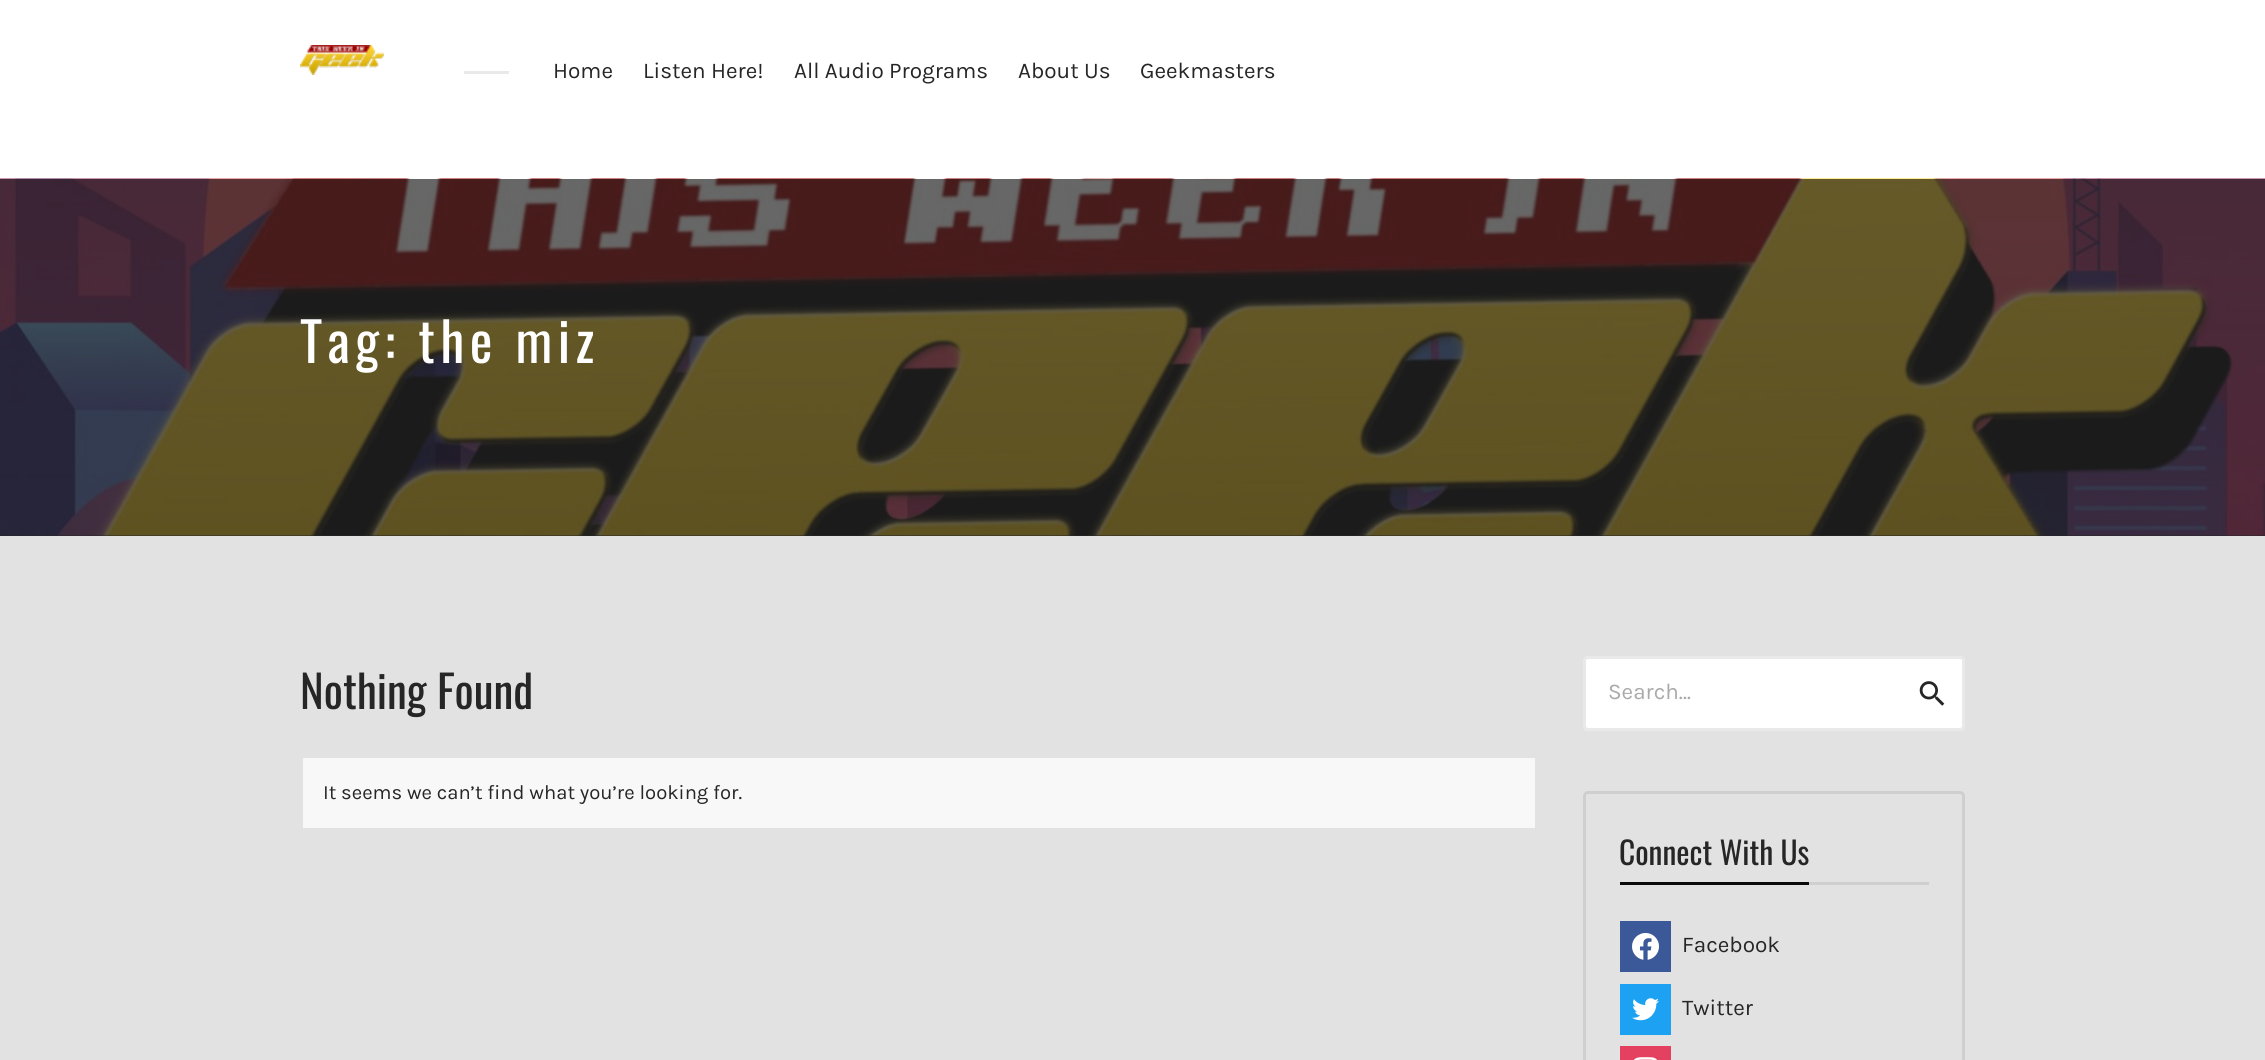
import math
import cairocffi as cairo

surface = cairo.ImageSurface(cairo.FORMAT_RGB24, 2265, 1060)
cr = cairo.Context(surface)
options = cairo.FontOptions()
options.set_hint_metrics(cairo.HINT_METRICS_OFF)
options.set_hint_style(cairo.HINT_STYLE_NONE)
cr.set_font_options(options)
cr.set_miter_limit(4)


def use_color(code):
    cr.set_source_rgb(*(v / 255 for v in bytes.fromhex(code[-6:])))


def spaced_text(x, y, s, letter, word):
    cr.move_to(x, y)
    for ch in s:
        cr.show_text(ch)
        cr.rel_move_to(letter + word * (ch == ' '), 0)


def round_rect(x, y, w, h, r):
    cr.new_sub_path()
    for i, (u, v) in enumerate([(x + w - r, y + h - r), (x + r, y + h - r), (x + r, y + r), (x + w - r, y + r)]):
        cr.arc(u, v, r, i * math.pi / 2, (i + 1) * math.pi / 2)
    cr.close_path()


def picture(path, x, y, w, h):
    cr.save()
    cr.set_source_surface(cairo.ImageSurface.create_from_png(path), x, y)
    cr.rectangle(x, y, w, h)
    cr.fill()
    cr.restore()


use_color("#e2e2e2")
cr.paint()
use_color("#ffffff")
cr.rectangle(0, 0, 2265, 179)
cr.fill()
picture("img1.png", 300, 45, 84, 30)
use_color("#e9e9e9")
cr.rectangle(464, 71, 45, 3)
cr.fill()
cr.select_font_face("Karla")
cr.set_font_size(22.5)
use_color("#262626")
cr.move_to(553, 78)
cr.show_text("Home")
cr.move_to(643, 78)
cr.show_text("Listen Here!")
cr.move_to(794, 78)
cr.show_text("All Audio Programs")
cr.move_to(1018, 78)
cr.show_text("About Us")
cr.move_to(1140, 78)
cr.show_text("Geekmasters")
cr.rectangle(0, 535, 2265, 1)
cr.fill()
picture("img2.png", 0, 178, 2265, 358)
cr.select_font_face("Oswald")
cr.set_font_size(54)
use_color("#ffffff")
spaced_text(300, 363, "Tag: the miz", 5.4, 0)
cr.set_font_size(45)
use_color("#262626")
cr.move_to(300, 709)
cr.show_text("Nothing Found")
use_color("#f8f8f8")
cr.rectangle(303, 758, 1232, 70)
cr.fill()
cr.select_font_face("Karla")
cr.set_font_size(20.25)
use_color("#262626")
cr.move_to(323, 799)
cr.show_text("It seems we can’t find what you’re looking for.")
use_color("#ffffff")
round_rect(1583, 656, 382, 75, 5)
cr.fill()
round_rect(1584.5, 657.5, 379, 72, 3.5)
cr.set_source_rgba(0.149, 0.149, 0.149, 0.1)
cr.set_line_width(3)
cr.stroke()
cr.set_font_size(22.5)
use_color("#aaaaaa")
cr.move_to(1608, 699)
cr.show_text("Search…")
picture("img3.png", 1919, 681, 26, 25)
round_rect(1584.5, 792.5, 379, 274, 3.5)
use_color("#cfcfcf")
cr.stroke()
cr.rectangle(1809, 882, 120, 3)
cr.fill()
cr.select_font_face("Oswald")
cr.set_font_size(31.5)
use_color("#262626")
cr.move_to(1619, 865)
cr.show_text("Connect With Us")
use_color("#0a0a0a")
cr.rectangle(1620, 882, 189, 3)
cr.fill()
use_color("#3b5998")
cr.rectangle(1620, 921, 51, 51)
cr.fill()
picture("img4.png", 1632, 932, 27, 28)
cr.select_font_face("Karla")
cr.set_font_size(22.5)
use_color("#262626")
cr.move_to(1682, 952)
cr.show_text("Facebook")
use_color("#1da1f2")
cr.rectangle(1620, 984, 51, 51)
cr.fill()
picture("img5.png", 1632, 998, 27, 23)
use_color("#262626")
cr.move_to(1682, 1015)
cr.show_text("Twitter")
use_color("#e4405f")
cr.rectangle(1620, 1046, 51, 14)
cr.fill()
picture("img6.png", 1634, 1057, 24, 3)
surface.write_to_png("result.png")
